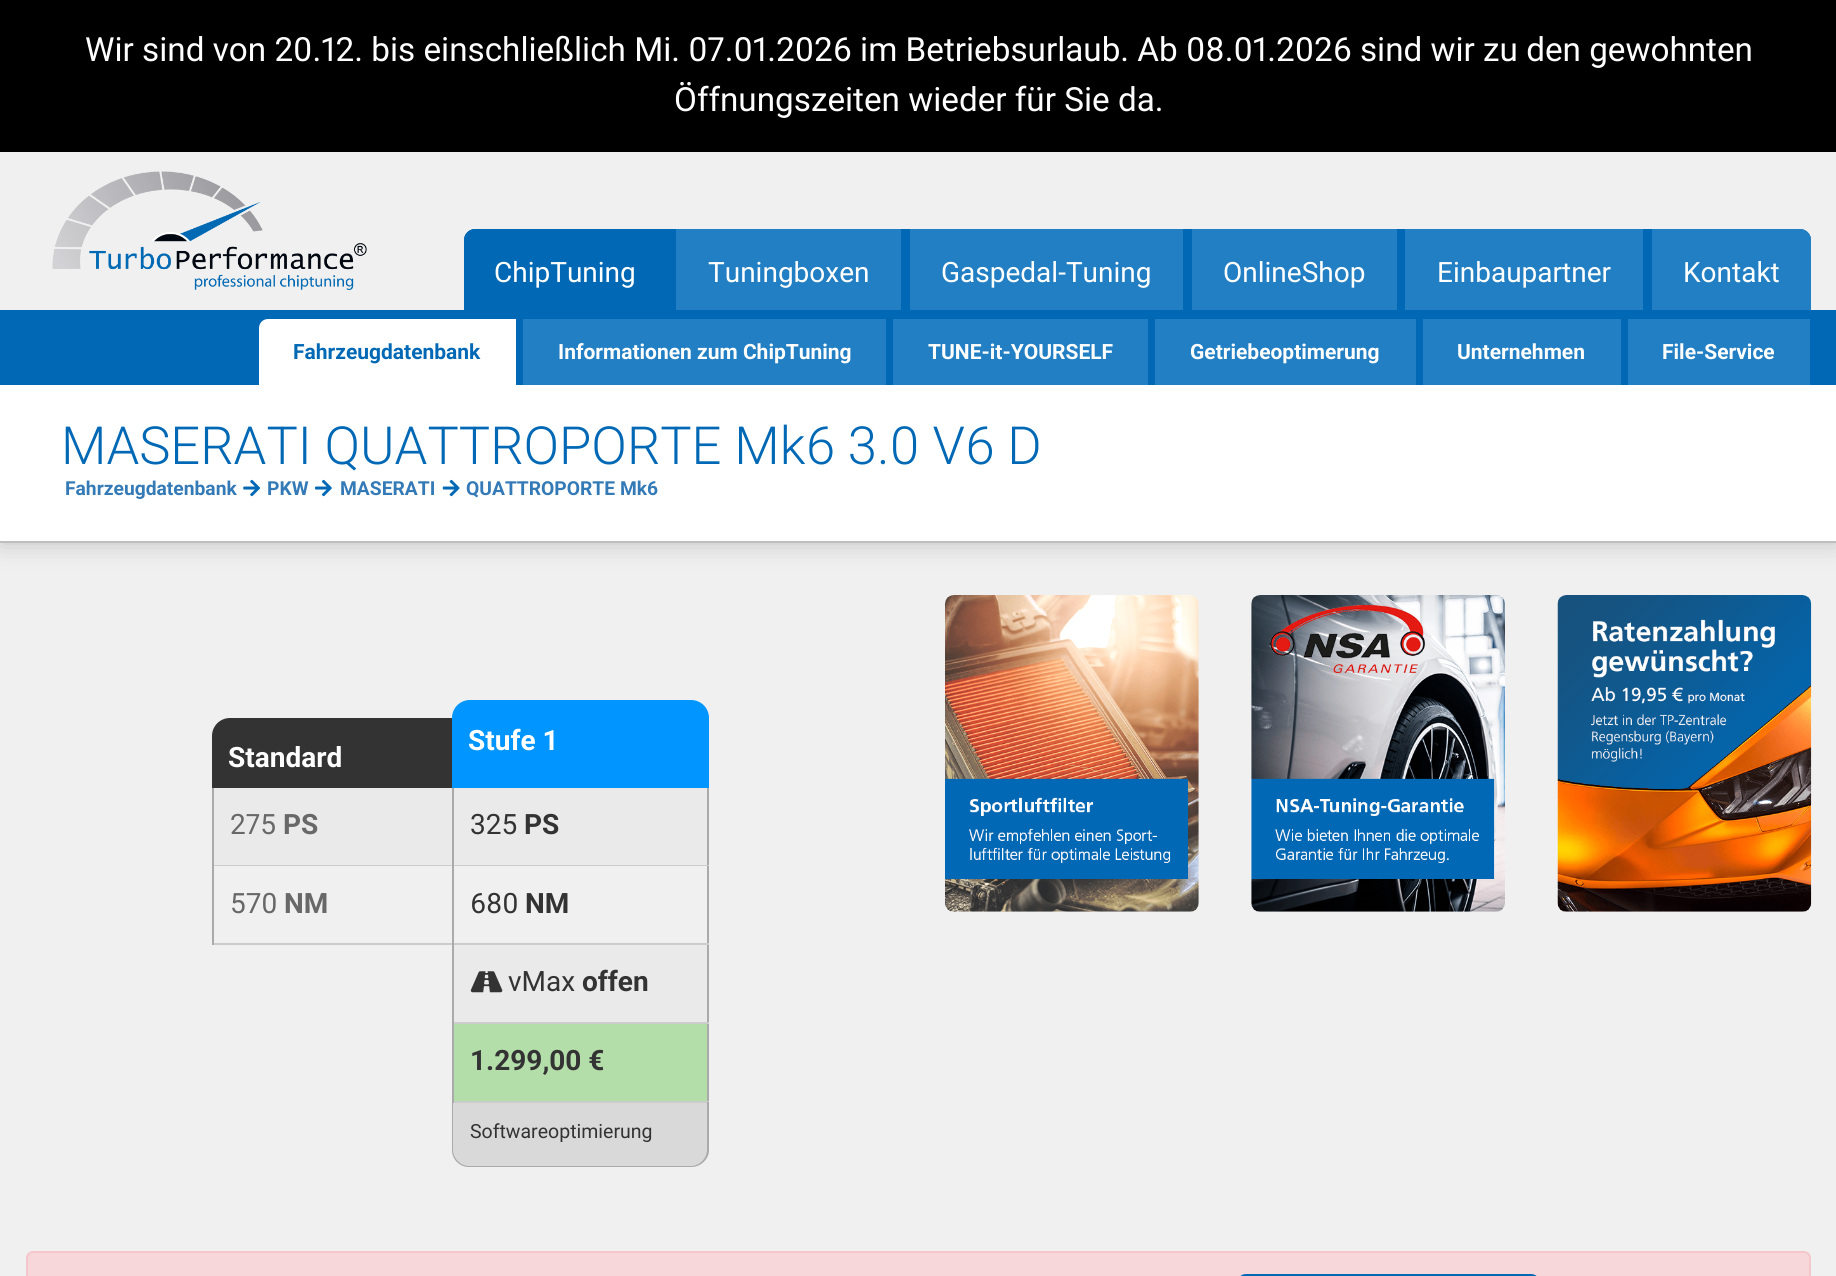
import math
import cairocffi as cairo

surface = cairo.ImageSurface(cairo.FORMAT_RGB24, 1836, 1276)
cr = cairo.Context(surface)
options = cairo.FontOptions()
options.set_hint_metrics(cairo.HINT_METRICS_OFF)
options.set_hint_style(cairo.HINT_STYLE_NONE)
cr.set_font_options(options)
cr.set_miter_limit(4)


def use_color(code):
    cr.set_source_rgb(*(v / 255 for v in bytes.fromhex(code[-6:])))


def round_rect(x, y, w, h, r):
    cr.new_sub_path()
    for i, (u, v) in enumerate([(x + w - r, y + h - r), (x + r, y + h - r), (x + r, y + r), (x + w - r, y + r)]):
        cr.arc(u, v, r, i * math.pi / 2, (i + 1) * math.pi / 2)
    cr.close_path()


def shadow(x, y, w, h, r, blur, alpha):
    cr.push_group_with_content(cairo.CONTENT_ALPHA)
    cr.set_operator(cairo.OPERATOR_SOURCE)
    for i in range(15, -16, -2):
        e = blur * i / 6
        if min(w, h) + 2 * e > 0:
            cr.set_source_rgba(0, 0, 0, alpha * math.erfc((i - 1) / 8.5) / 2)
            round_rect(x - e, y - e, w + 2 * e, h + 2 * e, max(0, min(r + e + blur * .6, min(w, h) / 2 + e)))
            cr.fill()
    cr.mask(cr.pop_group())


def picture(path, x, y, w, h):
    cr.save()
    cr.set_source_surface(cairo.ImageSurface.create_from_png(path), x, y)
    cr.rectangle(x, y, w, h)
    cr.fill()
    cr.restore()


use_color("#f0f0f0")
cr.paint()
use_color("#000000")
cr.rectangle(0, 0, 1836, 152)
cr.fill()
cr.select_font_face("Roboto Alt")
cr.set_font_size(33.25)
use_color("#ffffff")
cr.move_to(85, 61)
cr.show_text("Wir sind von 20.12. bis einschließlich Mi. 07.01.2026 im Betriebsurlaub. Ab 08.01.2026 sind wir zu den gewohnten")
cr.select_font_face("Roboto")
cr.move_to(674, 111)
cr.show_text("Öffnungszeiten wieder für Sie da.")
picture("img1.png", 52, 171, 315, 119)
use_color("#0068b4")
cr.new_path()
cr.move_to(475, 229)
cr.line_to(1800, 229)
cr.curve_to(1806, 229, 1811, 234, 1811, 240)
cr.line_to(1811, 312)
cr.line_to(464, 312)
cr.line_to(464, 240)
cr.curve_to(464, 234, 469, 229, 475, 229)
cr.close_path()
cr.fill()
cr.new_path()
cr.move_to(475, 229)
cr.line_to(669, 229)
cr.line_to(669, 310)
cr.line_to(464, 310)
cr.line_to(464, 240)
cr.curve_to(464, 234, 469, 229, 475, 229)
cr.close_path()
cr.fill()
cr.set_font_size(28)
use_color("#ffffff")
cr.move_to(494, 282)
cr.show_text("ChipTuning")
use_color("#227fc3")
cr.rectangle(676, 229, 225, 81)
cr.fill()
use_color("#ffffff")
cr.move_to(708, 282)
cr.show_text("Tuningboxen")
use_color("#227fc3")
cr.rectangle(910, 229, 273, 81)
cr.fill()
use_color("#ffffff")
cr.move_to(941, 282)
cr.show_text("Gaspedal-Tuning")
use_color("#227fc3")
cr.rectangle(1192, 229, 205, 81)
cr.fill()
use_color("#ffffff")
cr.move_to(1223, 282)
cr.show_text("OnlineShop")
use_color("#227fc3")
cr.rectangle(1405, 229, 238, 81)
cr.fill()
use_color("#ffffff")
cr.move_to(1437, 282)
cr.show_text("Einbaupartner")
use_color("#227fc3")
cr.new_path()
cr.move_to(1652, 229)
cr.line_to(1800, 229)
cr.curve_to(1806, 229, 1811, 234, 1811, 240)
cr.line_to(1811, 310)
cr.line_to(1652, 310)
cr.close_path()
cr.fill()
use_color("#ffffff")
cr.move_to(1683, 282)
cr.show_text("Kontakt")
use_color("#000000")
shadow(0, 385, 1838, 158, 0, 13, 0.2)
use_color("#0068b4")
cr.rectangle(0, 310, 1836, 75)
cr.fill()
use_color("#ffffff")
cr.new_path()
cr.move_to(268, 319)
cr.line_to(516, 319)
cr.line_to(516, 385)
cr.line_to(259, 385)
cr.line_to(259, 328)
cr.curve_to(259, 323, 263, 319, 268, 319)
cr.close_path()
cr.fill()
cr.select_font_face("Roboto", cairo.FONT_SLANT_NORMAL, cairo.FONT_WEIGHT_BOLD)
cr.set_font_size(21)
use_color("#0068b4")
cr.move_to(293, 359)
cr.show_text("Fahrzeugdatenbank")
use_color("#227fc3")
cr.rectangle(523, 319, 363, 66)
cr.fill()
use_color("#ffffff")
cr.move_to(558, 359)
cr.show_text("Informationen zum ChipTuning")
use_color("#227fc3")
cr.rectangle(893, 319, 255, 66)
cr.fill()
use_color("#ffffff")
cr.move_to(928, 359)
cr.show_text("TUNE-it-YOURSELF")
use_color("#227fc3")
cr.rectangle(1155, 319, 261, 66)
cr.fill()
use_color("#ffffff")
cr.move_to(1190, 359)
cr.show_text("Getriebeoptimerung")
use_color("#227fc3")
cr.rectangle(1423, 319, 198, 66)
cr.fill()
use_color("#ffffff")
cr.move_to(1457, 359)
cr.show_text("Unternehmen")
use_color("#227fc3")
cr.rectangle(1628, 319, 182, 66)
cr.fill()
use_color("#ffffff")
cr.move_to(1662, 359)
cr.show_text("File-Service")
cr.rectangle(0, 385, 1836, 156)
cr.fill()
use_color("#bebebe")
cr.rectangle(0, 541, 1836, 2)
cr.fill()
cr.select_font_face("Roboto Alt Light")
cr.set_font_size(52.5)
use_color("#0068b4")
cr.move_to(61, 464)
cr.show_text("MASERATI QUATTROPORTE Mk6 3.0 V6 D")
cr.select_font_face("Roboto", cairo.FONT_SLANT_NORMAL, cairo.FONT_WEIGHT_BOLD)
cr.set_font_size(19.25)
use_color("#337ab7")
cr.move_to(65, 495)
cr.show_text("Fahrzeugdatenbank")
picture("img2.png", 243, 479, 17, 18)
cr.move_to(267, 495)
cr.show_text("PKW")
picture("img3.png", 315, 479, 17, 18)
cr.move_to(340, 495)
cr.show_text("MASERATI")
picture("img4.png", 442, 479, 18, 18)
cr.move_to(466, 495)
cr.show_text("QUATTROPORTE Mk6")
use_color("#333333")
cr.new_path()
cr.move_to(230, 718)
cr.line_to(451, 718)
cr.curve_to(461, 718, 469, 726, 469, 736)
cr.line_to(469, 788)
cr.line_to(212, 788)
cr.line_to(212, 736)
cr.curve_to(212, 726, 220, 718, 230, 718)
cr.close_path()
cr.fill()
cr.set_font_size(28)
use_color("#ffffff")
cr.move_to(228, 767)
cr.show_text("Standard")
use_color("#eaeaea")
cr.rectangle(214, 788, 238, 77)
cr.fill()
use_color("#cccccc")
cr.rectangle(212, 865, 240, 1)
cr.fill()
use_color("#aaaaaa")
cr.rectangle(212, 788, 2, 78)
cr.fill()
cr.select_font_face("Roboto Alt")
use_color("#686868")
cr.move_to(230, 834)
cr.show_text("275")
cr.select_font_face("Roboto", cairo.FONT_SLANT_NORMAL, cairo.FONT_WEIGHT_BOLD)
cr.move_to(283, 834)
cr.show_text("PS")
use_color("#cccccc")
cr.rectangle(212, 943, 240, 2)
cr.fill()
use_color("#aaaaaa")
cr.rectangle(212, 866, 2, 79)
cr.fill()
cr.select_font_face("Roboto")
use_color("#686868")
cr.move_to(230, 913)
cr.show_text("570")
cr.select_font_face("Roboto", cairo.FONT_SLANT_NORMAL, cairo.FONT_WEIGHT_BOLD)
cr.move_to(284, 913)
cr.show_text("NM")
use_color("#0095ff")
cr.new_path()
cr.move_to(470, 700)
cr.line_to(691, 700)
cr.curve_to(701, 700, 709, 708, 709, 718)
cr.line_to(709, 788)
cr.line_to(452, 788)
cr.line_to(452, 718)
cr.curve_to(452, 708, 460, 700, 470, 700)
cr.close_path()
cr.fill()
use_color("#ffffff")
cr.move_to(468, 750)
cr.show_text("Stufe 1")
use_color("#eaeaea")
cr.rectangle(454, 788, 253, 77)
cr.fill()
use_color("#aaaaaa")
cr.rectangle(707, 788, 2, 315)
cr.fill()
use_color("#cccccc")
cr.rectangle(452, 865, 257, 1)
cr.fill()
use_color("#aaaaaa")
cr.rectangle(452, 788, 2, 78)
cr.fill()
cr.select_font_face("Roboto")
use_color("#333333")
cr.move_to(470, 834)
cr.show_text("325")
cr.select_font_face("Roboto", cairo.FONT_SLANT_NORMAL, cairo.FONT_WEIGHT_BOLD)
cr.move_to(524, 834)
cr.show_text("PS")
use_color("#cccccc")
cr.rectangle(452, 943, 257, 2)
cr.fill()
use_color("#aaaaaa")
cr.rectangle(452, 866, 2, 79)
cr.fill()
cr.select_font_face("Roboto Alt")
use_color("#333333")
cr.move_to(470, 913)
cr.show_text("680")
cr.select_font_face("Roboto", cairo.FONT_SLANT_NORMAL, cairo.FONT_WEIGHT_BOLD)
cr.move_to(525, 913)
cr.show_text("NM")
use_color("#eaeaea")
cr.rectangle(454, 945, 253, 77)
cr.fill()
use_color("#cccccc")
cr.rectangle(452, 1022, 257, 2)
cr.fill()
use_color("#aaaaaa")
cr.rectangle(452, 945, 2, 79)
cr.fill()
picture("img5.png", 470, 971, 33, 22)
cr.select_font_face("Roboto")
use_color("#333333")
cr.move_to(508, 991)
cr.show_text("vMax")
cr.select_font_face("Roboto", cairo.FONT_SLANT_NORMAL, cairo.FONT_WEIGHT_BOLD)
cr.move_to(582, 991)
cr.show_text("offen")
use_color("#b4dea9")
cr.rectangle(454, 1024, 253, 77)
cr.fill()
use_color("#cccccc")
cr.rectangle(452, 1101, 257, 2)
cr.fill()
use_color("#aaaaaa")
cr.rectangle(452, 1024, 2, 79)
cr.fill()
use_color("#333333")
cr.move_to(470, 1070)
cr.show_text("1.299,00 €")
use_color("#d9d9d9")
cr.new_path()
cr.move_to(452, 1103)
cr.line_to(709, 1103)
cr.line_to(709, 1149)
cr.curve_to(709, 1159, 701, 1167, 691, 1167)
cr.line_to(470, 1167)
cr.curve_to(460, 1167, 452, 1159, 452, 1149)
cr.close_path()
cr.fill()
use_color("#aaaaaa")
cr.set_fill_rule(cairo.FILL_RULE_EVEN_ODD)
cr.new_path()
cr.move_to(452, 1102)
cr.line_to(709, 1102)
cr.line_to(709, 1150)
cr.curve_to(709, 1159, 701, 1167, 691, 1167)
cr.line_to(469, 1167)
cr.curve_to(459, 1167, 452, 1159, 452, 1150)
cr.close_path()
cr.move_to(453, 1102)
cr.line_to(707, 1102)
cr.line_to(707, 1150)
cr.curve_to(707, 1158, 700, 1166, 691, 1166)
cr.line_to(469, 1166)
cr.curve_to(460, 1166, 453, 1158, 453, 1150)
cr.close_path()
cr.fill()
cr.select_font_face("Roboto")
cr.set_font_size(19.5)
use_color("#333333")
cr.move_to(470, 1138)
cr.show_text("Softwareoptimierung")
picture("img6.png", 945, 595, 254, 317)
picture("img7.png", 1251, 595, 254, 317)
picture("img8.png", 1557, 595, 255, 317)
use_color("#f8d7da")
round_rect(27, 1252, 1783, 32, 6)
cr.fill_preserve()
use_color("#f5c6cb")
cr.stroke()
use_color("#0068b4")
round_rect(1237, 1274, 303, 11, 9)
cr.fill()
surface.write_to_png("result.png")
